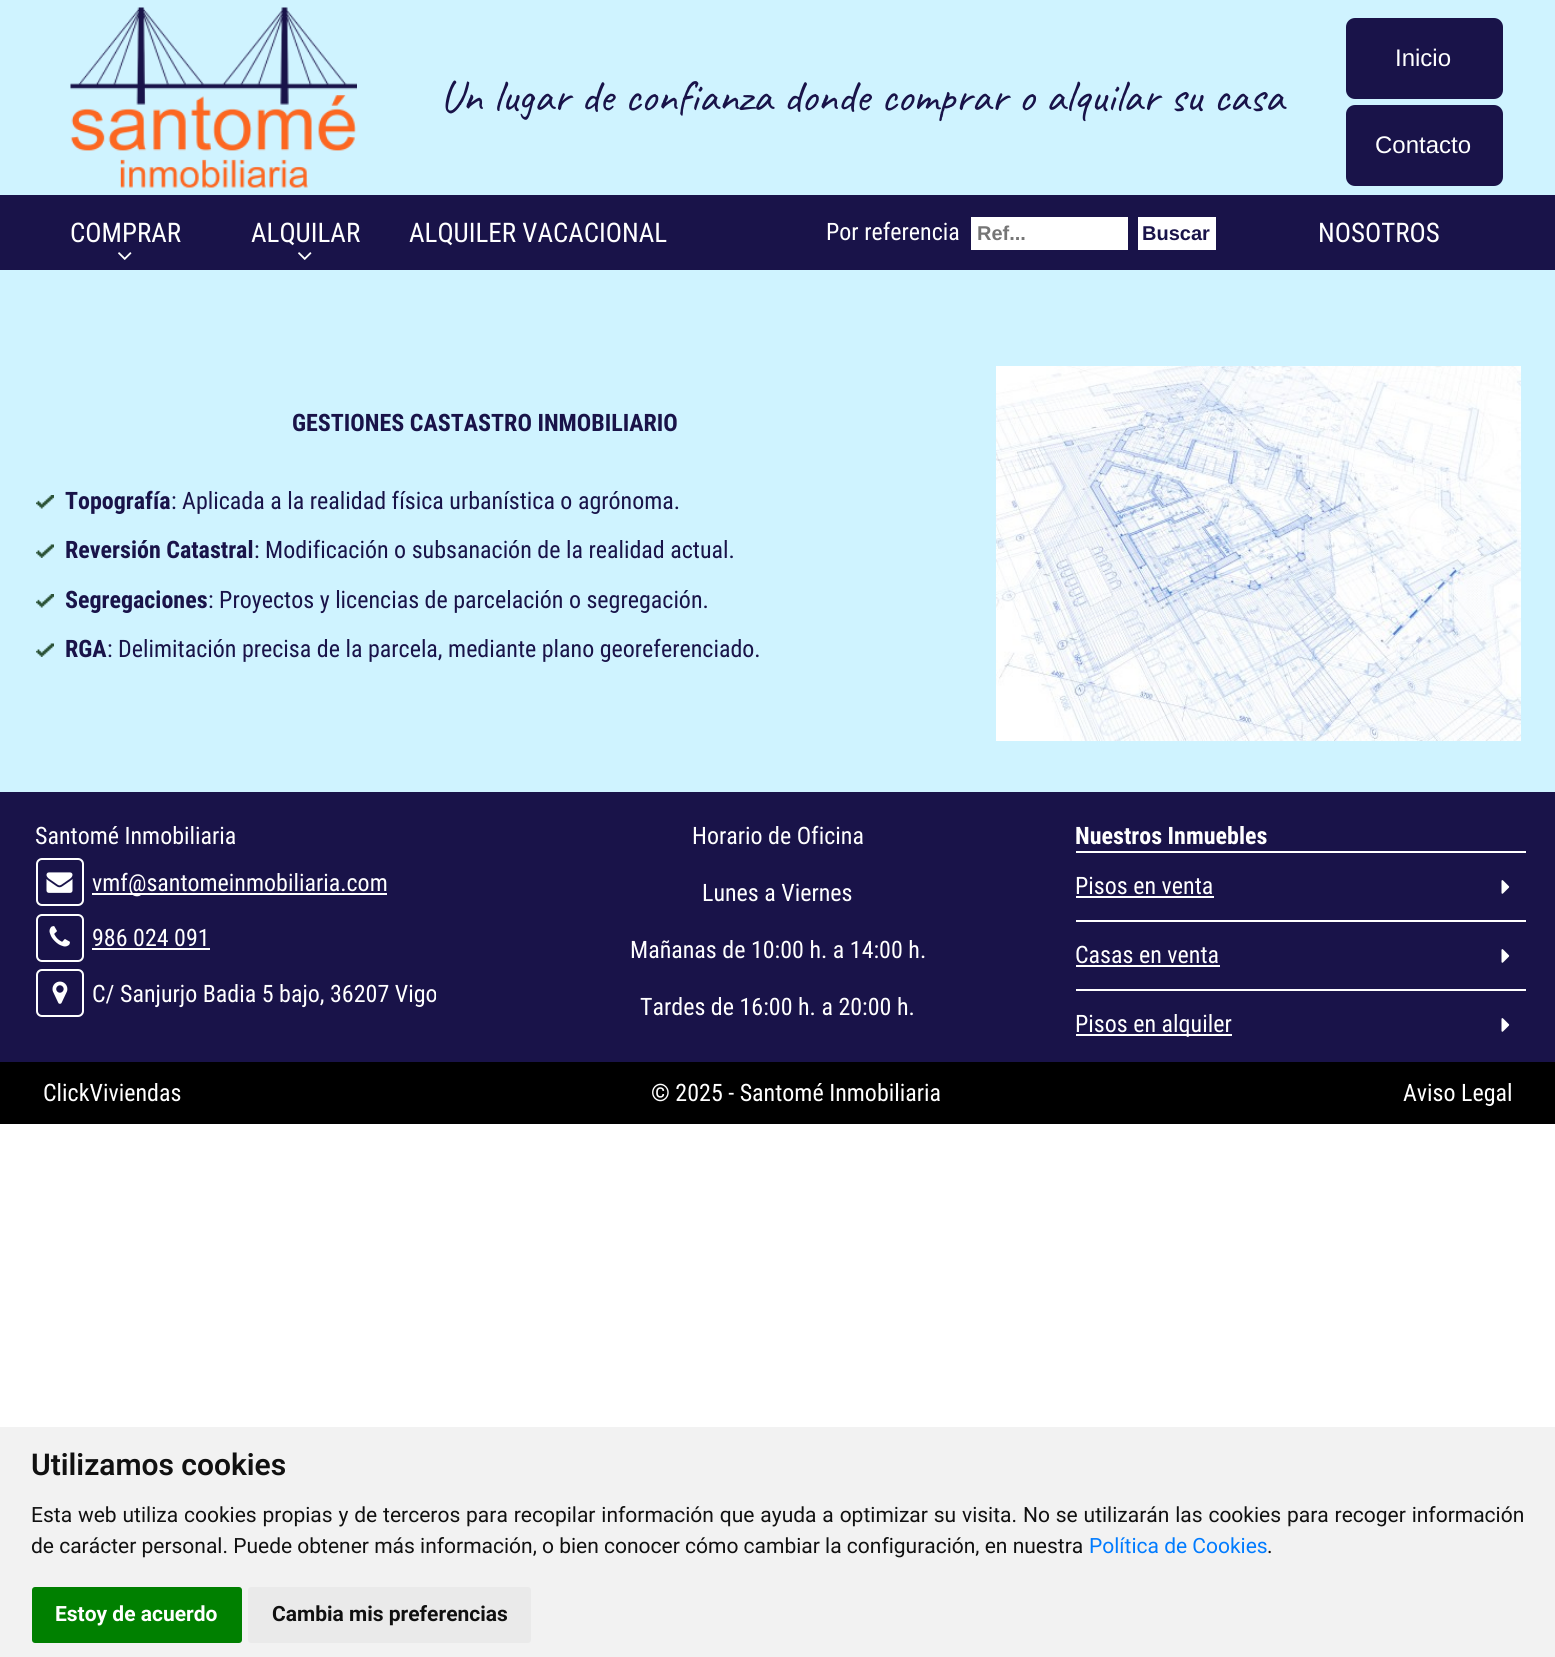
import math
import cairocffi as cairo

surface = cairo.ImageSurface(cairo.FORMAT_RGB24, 1555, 1657)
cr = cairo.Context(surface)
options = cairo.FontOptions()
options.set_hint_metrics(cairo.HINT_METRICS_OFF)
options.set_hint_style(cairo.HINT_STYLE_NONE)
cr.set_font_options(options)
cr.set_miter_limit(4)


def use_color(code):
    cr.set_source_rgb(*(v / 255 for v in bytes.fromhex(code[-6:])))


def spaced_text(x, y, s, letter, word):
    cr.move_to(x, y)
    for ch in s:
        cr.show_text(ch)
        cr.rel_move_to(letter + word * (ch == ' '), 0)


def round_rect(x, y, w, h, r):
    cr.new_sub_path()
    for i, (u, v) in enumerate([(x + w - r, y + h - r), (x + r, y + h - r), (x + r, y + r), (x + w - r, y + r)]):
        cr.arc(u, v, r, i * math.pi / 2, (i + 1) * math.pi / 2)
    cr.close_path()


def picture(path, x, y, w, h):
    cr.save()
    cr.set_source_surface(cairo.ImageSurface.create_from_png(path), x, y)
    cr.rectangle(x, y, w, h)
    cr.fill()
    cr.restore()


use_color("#ffffff")
cr.paint()
use_color("#cff3ff")
cr.rectangle(0, 0, 1555, 195)
cr.fill()
picture("img1.png", 70, 7, 287, 181)
cr.select_font_face("Caveat")
cr.set_font_size(45)
use_color("#191349")
spaced_text(440, 111, "Un lugar de confianza donde comprar o alquilar su casa", 0, 0.5)
round_rect(1347.5, 19.5, 154, 78, 7.5)
cr.fill_preserve()
cr.set_line_width(3)
cr.stroke()
cr.select_font_face("Liberation Sans")
cr.set_font_size(24)
use_color("#ffffff")
cr.move_to(1395, 66)
cr.show_text("Inicio")
use_color("#191349")
round_rect(1347.5, 106.5, 154, 78, 7.5)
cr.fill_preserve()
cr.stroke()
use_color("#ffffff")
cr.move_to(1375, 153)
cr.show_text("Contacto")
use_color("#191349")
cr.rectangle(0, 195, 1555, 75)
cr.fill()
cr.select_font_face("Roboto Condensed")
use_color("#ffffff")
cr.move_to(826, 240)
cr.show_text("Por referencia")
cr.rectangle(971, 217, 157, 33)
cr.fill()
cr.select_font_face("Liberation Sans", cairo.FONT_SLANT_NORMAL, cairo.FONT_WEIGHT_BOLD)
cr.set_font_size(20)
use_color("#757575")
cr.move_to(977, 240)
cr.show_text("Ref...")
use_color("#ffffff")
cr.rectangle(1138, 217, 78, 33)
cr.fill()
use_color("#191349")
cr.move_to(1142, 240)
cr.show_text("Buscar")
cr.select_font_face("Roboto Condensed")
cr.set_font_size(27)
use_color("#ffffff")
cr.move_to(70, 242)
cr.show_text("COMPRAR")
picture("img2.png", 118, 252, 14, 8)
cr.move_to(251, 242)
cr.show_text("ALQUILAR")
picture("img2.png", 298, 252, 14, 8)
cr.move_to(409, 242)
cr.show_text("ALQUILER VACACIONAL")
cr.move_to(1318, 242)
cr.show_text("NOSOTROS")
use_color("#cff3ff")
cr.rectangle(0, 270, 1555, 522)
cr.fill()
cr.select_font_face("Roboto Condensed", cairo.FONT_SLANT_NORMAL, cairo.FONT_WEIGHT_BOLD)
cr.set_font_size(24)
use_color("#191349")
cr.move_to(292, 431)
cr.show_text("GESTIONES CASTASTRO INMOBILIARIO")
picture("img3.png", 36, 495, 18, 14)
cr.move_to(65, 509)
cr.show_text("Topografía")
cr.select_font_face("Roboto Condensed")
cr.move_to(171, 509)
cr.show_text(": Aplicada a la realidad física urbanística o agrónoma.")
picture("img4.png", 36, 544, 18, 14)
cr.select_font_face("Roboto Condensed", cairo.FONT_SLANT_NORMAL, cairo.FONT_WEIGHT_BOLD)
cr.move_to(65, 558)
cr.show_text("Reversión Catastral")
cr.select_font_face("Roboto Condensed")
cr.move_to(254, 558)
cr.show_text(": Modificación o subsanación de la realidad actual.")
picture("img3.png", 36, 594, 18, 14)
cr.select_font_face("Roboto Condensed", cairo.FONT_SLANT_NORMAL, cairo.FONT_WEIGHT_BOLD)
cr.move_to(65, 608)
cr.show_text("Segregaciones")
cr.select_font_face("Roboto Condensed")
cr.move_to(208, 608)
cr.show_text(": Proyectos y licencias de parcelación o segregación.")
picture("img4.png", 36, 643, 18, 14)
cr.select_font_face("Roboto Condensed", cairo.FONT_SLANT_NORMAL, cairo.FONT_WEIGHT_BOLD)
cr.move_to(65, 657)
cr.show_text("RGA")
cr.select_font_face("Roboto Condensed")
cr.move_to(107, 657)
cr.show_text(": Delimitación precisa de la parcela, mediante plano georeferenciado.")
picture("img5.png", 996, 366, 525, 375)
cr.rectangle(0, 792, 1555, 270)
cr.fill()
use_color("#ffffff")
cr.move_to(35, 844)
cr.show_text("Santomé Inmobiliaria")
round_rect(37, 859, 46, 46, 5)
cr.set_line_width(2)
cr.stroke()
picture("img6.png", 46, 872, 27, 21)
cr.rectangle(92, 893, 295, 2)
cr.fill()
cr.move_to(92, 891)
cr.show_text("vmf@santomeinmobiliaria.com")
round_rect(37, 915, 46, 46, 5)
cr.stroke()
picture("img7.png", 49, 926, 21, 21)
cr.move_to(92, 946)
cr.show_text("986 024 091")
cr.rectangle(92, 948, 118, 2)
cr.fill()
round_rect(37, 970, 46, 46, 5)
cr.stroke()
picture("img8.png", 52, 981, 16, 23)
cr.move_to(92, 1002)
cr.show_text("C/ Sanjurjo Badia 5 bajo, 36207 Vigo")
cr.move_to(692, 844)
cr.show_text("Horario de Oficina")
cr.move_to(702, 901)
cr.show_text("Lunes a Viernes")
cr.move_to(630, 958)
cr.show_text("Mañanas de 10:00 h. a 14:00 h.")
cr.move_to(640, 1015)
cr.show_text("Tardes de 16:00 h. a 20:00 h.")
cr.select_font_face("Roboto Condensed", cairo.FONT_SLANT_NORMAL, cairo.FONT_WEIGHT_BOLD)
cr.move_to(1075, 844)
cr.show_text("Nuestros Inmuebles")
cr.rectangle(1076, 851, 450, 2)
cr.fill()
cr.select_font_face("Roboto Condensed")
cr.move_to(1075, 894)
cr.show_text("Pisos en venta")
cr.rectangle(1076, 896, 138, 2)
cr.fill()
picture("img9.png", 1501, 880, 9, 14)
cr.rectangle(1076, 920, 450, 2)
cr.fill()
cr.move_to(1075, 963)
cr.show_text("Casas en venta")
cr.rectangle(1076, 965, 144, 2)
cr.fill()
picture("img9.png", 1501, 949, 9, 14)
cr.rectangle(1076, 989, 450, 2)
cr.fill()
cr.rectangle(1076, 1034, 156, 2)
cr.fill()
cr.move_to(1075, 1032)
cr.show_text("Pisos en alquiler")
picture("img9.png", 1501, 1018, 9, 14)
use_color("#000000")
cr.rectangle(0, 1062, 1555, 62)
cr.fill()
use_color("#ffffff")
cr.move_to(43, 1101)
cr.show_text("ClickViviendas")
cr.move_to(651, 1101)
cr.show_text("© 2025 - Santomé Inmobiliaria")
cr.move_to(1403, 1101)
cr.show_text("Aviso Legal")
use_color("#f2f2f2")
cr.rectangle(0, 1427, 1555, 230)
cr.fill()
cr.select_font_face("Roboto SemiBold")
cr.set_font_size(30)
use_color("#111111")
cr.move_to(31, 1475)
cr.show_text("Utilizamos cookies")
cr.select_font_face("Roboto")
cr.set_font_size(21)
spaced_text(31, 1522, "Esta web utiliza cookies propias y de terceros para recopilar información que ayuda a optimizar su visita. No se utilizarán las cookies para recoger información", 0, 0.65)
cr.move_to(31, 1553)
cr.show_text("de carácter personal. Puede obtener más información, o bien conocer cómo cambiar la configuración, en nuestra")
use_color("#007bff")
cr.move_to(1089, 1553)
cr.show_text("Política de Cookies")
use_color("#111111")
cr.move_to(1267, 1553)
cr.show_text(".")
use_color("#008000")
round_rect(32, 1587, 210, 56, 3)
cr.fill()
cr.select_font_face("Roboto", cairo.FONT_SLANT_NORMAL, cairo.FONT_WEIGHT_BOLD)
use_color("#ffffff")
cr.move_to(55, 1621)
cr.show_text("Estoy de acuerdo")
use_color("#eaeaea")
round_rect(248, 1587, 283, 56, 3)
cr.fill()
use_color("#111111")
cr.move_to(272, 1621)
cr.show_text("Cambia mis preferencias")
surface.write_to_png("result.png")
